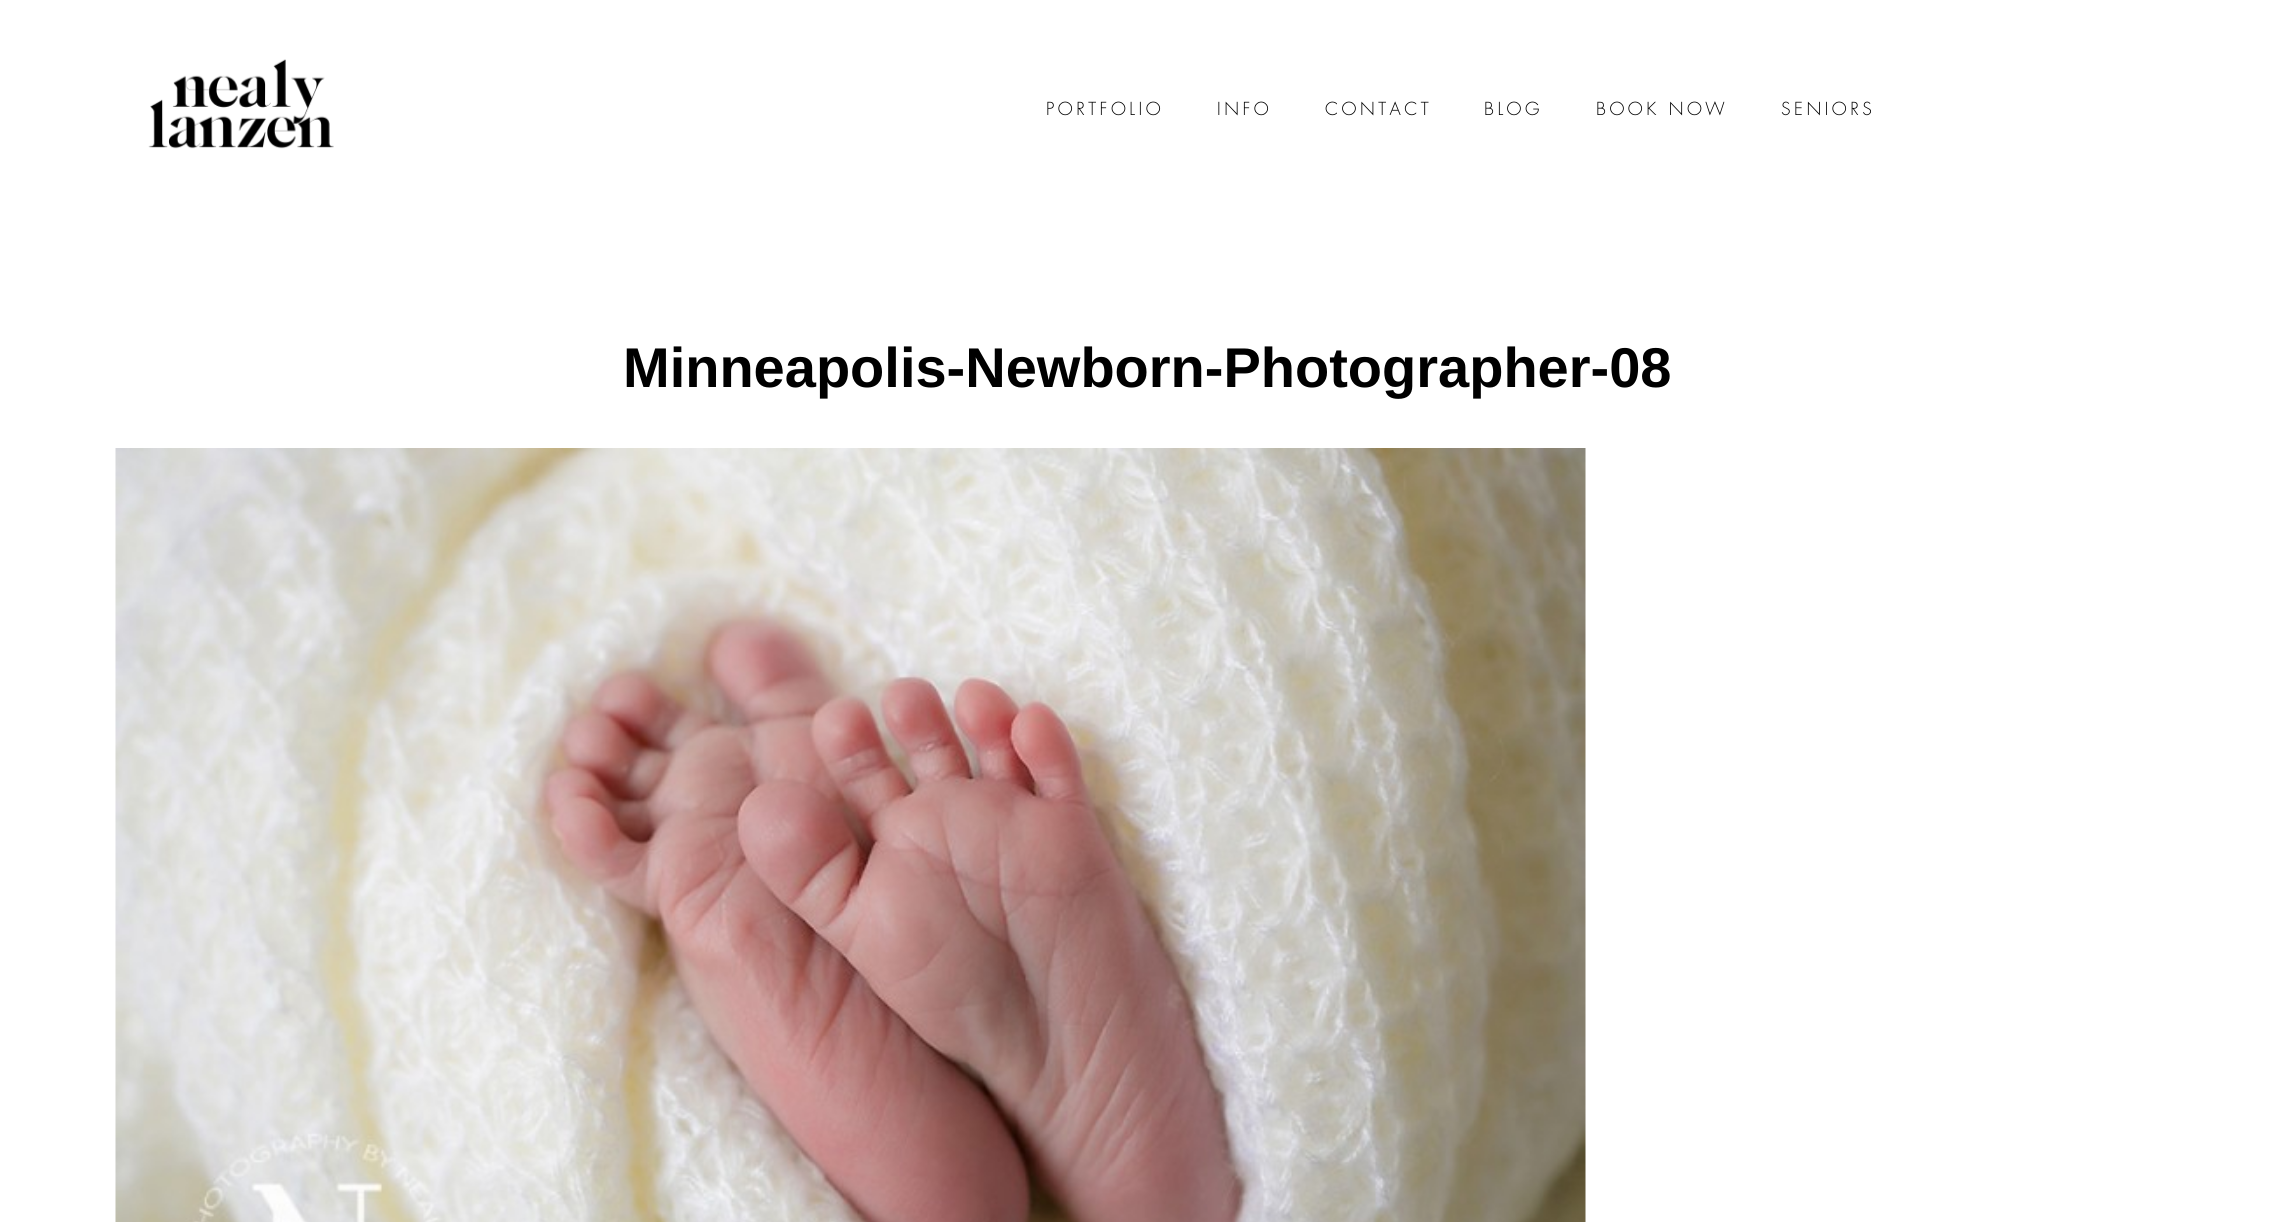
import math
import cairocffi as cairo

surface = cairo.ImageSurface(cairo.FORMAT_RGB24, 2294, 1222)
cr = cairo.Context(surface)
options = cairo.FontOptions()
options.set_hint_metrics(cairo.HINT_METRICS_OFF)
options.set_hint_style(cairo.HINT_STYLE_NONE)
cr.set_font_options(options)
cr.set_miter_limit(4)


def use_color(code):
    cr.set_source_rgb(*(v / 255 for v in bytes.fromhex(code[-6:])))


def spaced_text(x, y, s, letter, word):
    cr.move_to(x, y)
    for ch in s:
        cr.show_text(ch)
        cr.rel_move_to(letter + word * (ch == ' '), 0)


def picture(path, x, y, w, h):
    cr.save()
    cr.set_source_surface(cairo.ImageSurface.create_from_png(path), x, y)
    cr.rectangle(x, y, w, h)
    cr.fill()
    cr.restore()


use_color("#ffffff")
cr.paint()
picture("img1.png", 148, 59, 186, 90)
cr.select_font_face("Futura Light")
cr.set_font_size(17.5)
use_color("#000000")
spaced_text(1046, 115, "PORTFOLIO", 3.5, 0)
spaced_text(1217, 115, "INFO", 3.5, 0)
spaced_text(1325, 115, "CONTACT", 3.5, 0)
spaced_text(1484, 115, "BLOG", 3.5, 0)
spaced_text(1596, 115, "BOOK NOW", 3.5, 0)
spaced_text(1781, 115, "SENIORS", 3.5, 0)
cr.select_font_face("Liberation Sans", cairo.FONT_SLANT_NORMAL, cairo.FONT_WEIGHT_BOLD)
cr.set_font_size(56)
cr.move_to(623, 387)
cr.show_text("Minneapolis-Newborn-Photographer-08")
picture("img2.png", 115, 448, 1471, 774)
surface.write_to_png("result.png")
